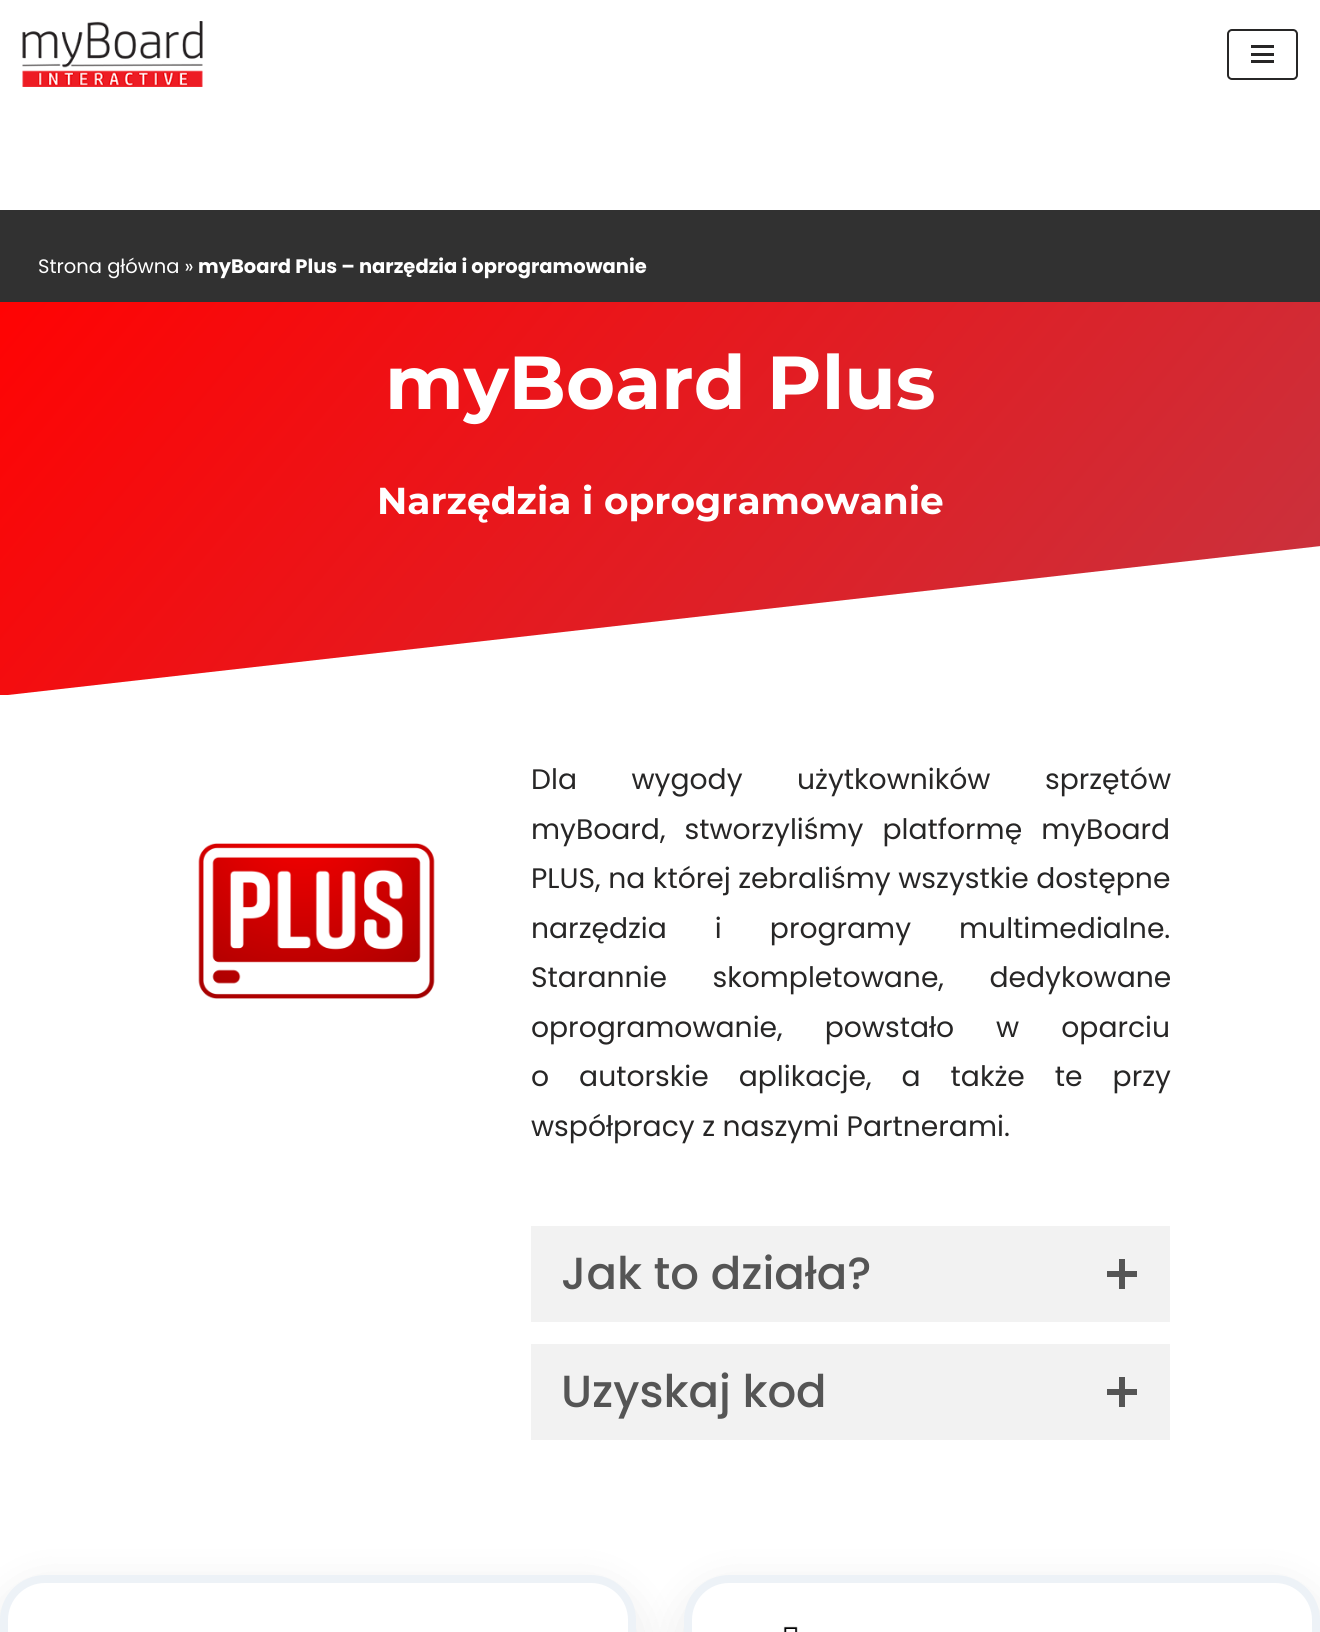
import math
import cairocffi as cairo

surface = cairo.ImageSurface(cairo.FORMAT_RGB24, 1320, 1632)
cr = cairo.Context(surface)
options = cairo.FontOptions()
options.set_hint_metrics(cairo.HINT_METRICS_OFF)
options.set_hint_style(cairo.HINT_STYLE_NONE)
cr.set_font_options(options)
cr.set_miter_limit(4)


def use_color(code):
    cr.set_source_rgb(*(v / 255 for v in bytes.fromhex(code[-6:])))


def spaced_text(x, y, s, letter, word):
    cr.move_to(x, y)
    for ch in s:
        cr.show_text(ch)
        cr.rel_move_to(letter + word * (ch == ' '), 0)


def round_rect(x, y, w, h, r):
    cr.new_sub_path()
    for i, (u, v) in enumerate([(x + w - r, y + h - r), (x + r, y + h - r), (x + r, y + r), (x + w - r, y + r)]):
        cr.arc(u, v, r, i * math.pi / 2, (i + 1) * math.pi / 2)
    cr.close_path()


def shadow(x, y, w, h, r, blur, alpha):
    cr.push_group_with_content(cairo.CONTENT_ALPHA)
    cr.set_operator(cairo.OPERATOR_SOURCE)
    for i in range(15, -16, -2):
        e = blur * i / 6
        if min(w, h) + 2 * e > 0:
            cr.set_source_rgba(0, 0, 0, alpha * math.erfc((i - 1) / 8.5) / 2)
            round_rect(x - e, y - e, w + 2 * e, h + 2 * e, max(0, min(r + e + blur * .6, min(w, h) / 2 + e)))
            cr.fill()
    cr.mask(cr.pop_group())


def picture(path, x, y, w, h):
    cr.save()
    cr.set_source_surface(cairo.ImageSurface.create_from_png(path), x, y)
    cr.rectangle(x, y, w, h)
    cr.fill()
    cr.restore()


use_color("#ffffff")
cr.paint()
picture("img1.png", 22, 21, 181, 66)
round_rect(1228, 30, 69, 49, 4)
use_color("#272626")
cr.stroke()
cr.rectangle(1251, 45, 23, 3)
cr.fill()
cr.rectangle(1251, 53, 23, 3)
cr.fill()
cr.rectangle(1251, 60, 23, 3)
cr.fill()
use_color("#313131")
cr.rectangle(0, 210, 1320, 92)
cr.fill()
cr.select_font_face("Poppins")
cr.set_font_size(19.5)
use_color("#ffffff")
cr.move_to(38, 273)
cr.show_text("Strona główna »")
cr.select_font_face("Poppins", cairo.FONT_SLANT_NORMAL, cairo.FONT_WEIGHT_BOLD)
cr.move_to(198, 273)
cr.show_text("myBoard Plus – narzędzia i oprogramowanie")
gradient = cairo.LinearGradient(176, 92, 1144, 904)
gradient.add_color_stop_rgba(0, 1, 0.012, 0.012, 1)
gradient.add_color_stop_rgba(1, 0.78, 0.204, 0.251, 1)
cr.set_source(gradient)
cr.rectangle(0, 302, 1320, 393)
cr.fill()
cr.select_font_face("Montserrat Thin")
cr.set_font_size(75)
use_color("#ffffff")
cr.move_to(385, 409)
cr.show_text("myBoard Plus")
cr.set_font_size(37.5)
cr.move_to(377, 514)
cr.show_text("Narzędzia i oprogramowanie")
cr.new_path()
cr.move_to(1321, 546)
cr.line_to(-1, 696)
cr.line_to(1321, 696)
cr.close_path()
cr.fill()
picture("img2.png", 198, 843, 237, 156)
cr.select_font_face("Poppins")
cr.set_font_size(28.2)
use_color("#272626")
spaced_text(531, 789, "Dla wygody użytkowników sprzętów", 0, 47)
spaced_text(531, 839, "myBoard, stworzyliśmy platformę myBoard", 0, 11.5)
cr.move_to(531, 888)
cr.show_text("PLUS, na której zebraliśmy wszystkie dostępne")
spaced_text(531, 938, "narzędzia i programy multimedialne.", 0, 40.5)
spaced_text(531, 987, "Starannie skompletowane, dedykowane", 0, 38)
spaced_text(531, 1037, "oprogramowanie, powstało w oparciu", 0, 34.5)
spaced_text(531, 1086, "o autorskie aplikacje, a także te przy", 0, 22.5)
cr.move_to(531, 1136)
cr.show_text("współpracy z naszymi Partnerami.")
use_color("#f2f2f2")
cr.rectangle(531, 1226, 639, 96)
cr.fill()
cr.select_font_face("Poppins Medium")
cr.set_font_size(45)
use_color("#555555")
cr.move_to(561, 1289)
cr.show_text("Jak to działa?")
cr.rectangle(1119, 1259, 6, 30)
cr.fill()
cr.rectangle(1107, 1271, 30, 6)
cr.fill()
use_color("#f2f2f2")
cr.rectangle(531, 1344, 639, 96)
cr.fill()
use_color("#555555")
cr.move_to(561, 1407)
cr.show_text("Uzyskaj kod")
cr.rectangle(1119, 1377, 6, 30)
cr.fill()
cr.rectangle(1107, 1389, 30, 6)
cr.fill()
use_color("#000000")
shadow(0, 1590, 636, 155, 45, 22.5, 0.1)
use_color("#ffffff")
round_rect(4, 1579, 628, 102, 41)
cr.fill_preserve()
use_color("#edf2f7")
cr.set_line_width(8)
cr.stroke()
use_color("#000000")
shadow(684, 1590, 636, 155, 45, 22.5, 0.1)
use_color("#ffffff")
round_rect(688, 1579, 628, 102, 41)
cr.fill_preserve()
use_color("#edf2f7")
cr.stroke()
picture("img3.png", 783, 1626, 15, 6)
surface.write_to_png("result.png")
